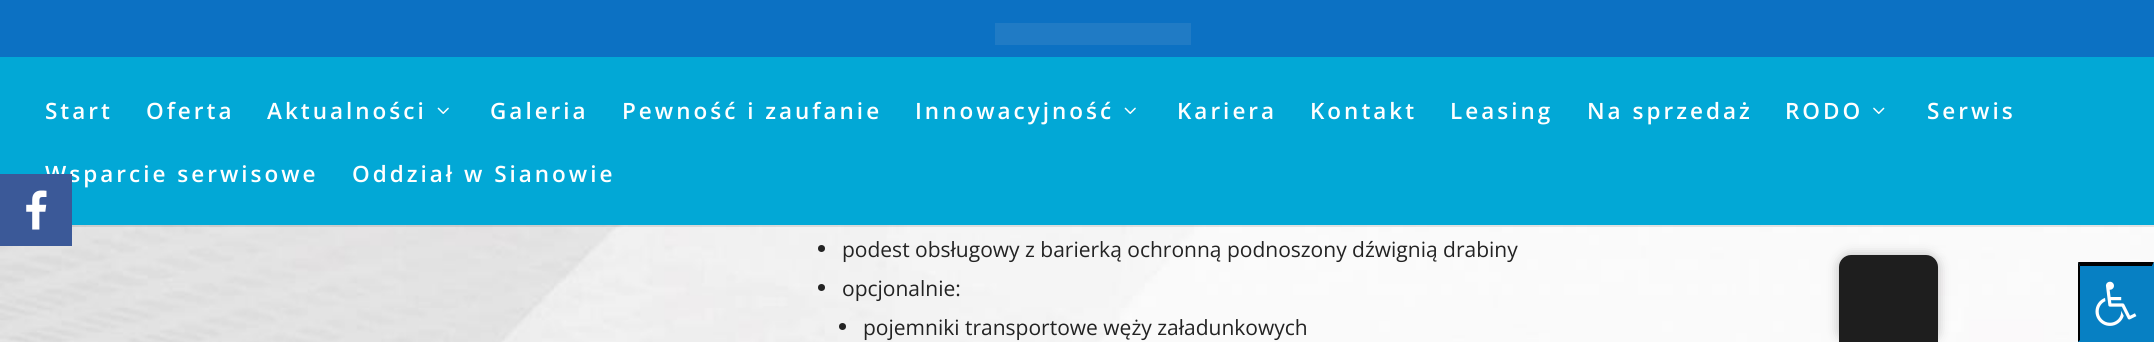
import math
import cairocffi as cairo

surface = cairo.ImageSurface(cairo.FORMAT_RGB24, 2154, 342)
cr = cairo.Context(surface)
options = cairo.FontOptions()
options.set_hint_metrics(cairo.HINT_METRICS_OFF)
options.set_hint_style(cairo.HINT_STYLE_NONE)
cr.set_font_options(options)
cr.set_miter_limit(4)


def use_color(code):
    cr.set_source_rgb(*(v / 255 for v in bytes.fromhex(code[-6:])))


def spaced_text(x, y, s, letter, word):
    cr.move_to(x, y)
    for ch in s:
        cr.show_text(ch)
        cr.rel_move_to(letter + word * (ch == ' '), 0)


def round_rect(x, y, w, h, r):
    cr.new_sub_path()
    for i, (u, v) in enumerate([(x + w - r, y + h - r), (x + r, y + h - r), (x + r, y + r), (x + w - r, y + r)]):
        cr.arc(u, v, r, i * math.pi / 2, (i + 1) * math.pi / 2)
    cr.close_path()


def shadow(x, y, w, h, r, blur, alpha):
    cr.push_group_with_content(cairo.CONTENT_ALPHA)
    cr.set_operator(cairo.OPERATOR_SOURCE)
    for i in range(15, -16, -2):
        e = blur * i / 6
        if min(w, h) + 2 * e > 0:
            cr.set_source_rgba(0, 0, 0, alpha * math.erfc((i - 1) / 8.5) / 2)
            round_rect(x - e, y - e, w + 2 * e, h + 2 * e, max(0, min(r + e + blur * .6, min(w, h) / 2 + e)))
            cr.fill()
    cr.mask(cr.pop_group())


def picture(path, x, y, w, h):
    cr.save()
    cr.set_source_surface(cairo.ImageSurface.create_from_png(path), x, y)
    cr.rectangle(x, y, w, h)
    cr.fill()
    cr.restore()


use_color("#ffffff")
cr.paint()
use_color("#02a8d6")
cr.rectangle(0, 57, 2154, 168)
cr.fill()
cr.select_font_face("Open Sans SemiBold")
cr.set_font_size(22.5)
use_color("#ffffff")
spaced_text(45, 182, "Wsparcie serwisowe", 3, 0)
picture("img4.png", 0, 225, 2154, 117)
use_color("#3b5998")
cr.rectangle(0, 174, 72, 72)
cr.fill()
picture("img1.png", 26, 190, 21, 40)
use_color("#0c71c3")
cr.rectangle(0, 0, 2154, 57)
cr.fill()
use_color("#207bc5")
cr.rectangle(995, 23, 196, 22)
cr.fill()
cr.set_source_rgba(0, 0, 0, 0.1)
cr.rectangle(72, 225, 2082, 2)
cr.fill()
use_color("#ffffff")
spaced_text(45, 119, "Start", 3, 0)
spaced_text(146, 119, "Oferta", 3, 0)
spaced_text(267, 119, "Aktualności", 3, 0)
picture("img2.png", 437, 107, 12, 7)
spaced_text(490, 119, "Galeria", 3, 0)
spaced_text(622, 119, "Pewność i zaufanie", 3, 0)
spaced_text(915, 119, "Innowacyjność", 3, 0)
picture("img2.png", 1124, 107, 12, 7)
spaced_text(1177, 119, "Kariera", 3, 0)
spaced_text(1310, 119, "Kontakt", 3, 0)
spaced_text(1450, 119, "Leasing", 3, 0)
spaced_text(1587, 119, "Na sprzedaż", 3, 0)
spaced_text(1785, 119, "RODO", 3, 0)
picture("img3.png", 1873, 107, 12, 7)
spaced_text(1927, 119, "Serwis", 3, 0)
spaced_text(352, 182, "Oddział w Sianowie", 3, 0)
use_color("#232323")
cr.new_path()
cr.arc(821.5, 248.5, 3.5, 0, 2 * math.pi)
cr.fill()
cr.select_font_face("Open Sans")
cr.set_font_size(21)
cr.move_to(842, 257)
cr.show_text("podest obsługowy z barierką ochronną podnoszony dźwignią drabiny")
cr.new_path()
cr.arc(821.5, 287.5, 3.5, 0, 2 * math.pi)
cr.fill()
cr.move_to(842, 296)
cr.show_text("opcjonalnie:")
cr.new_path()
cr.arc(842.5, 326.5, 3.5, 0, 2 * math.pi)
cr.fill()
cr.move_to(863, 335)
cr.show_text("pojemniki transportowe węży załadunkowych")
use_color("#000000")
shadow(1839, 255, 99, 87, 12, 6, 0.25)
use_color("#1e1e1e")
cr.new_path()
cr.move_to(1851, 255)
cr.line_to(1926, 255)
cr.curve_to(1932.5, 255, 1938, 260.5, 1938, 267)
cr.line_to(1938, 342)
cr.line_to(1839, 342)
cr.line_to(1839, 267)
cr.curve_to(1839, 260.5, 1844.5, 255, 1851, 255)
cr.close_path()
cr.fill()
use_color("#0780c3")
cr.rectangle(2078, 263, 76, 79)
cr.fill()
use_color("#000000")
cr.new_path()
cr.move_to(2078, 262)
cr.line_to(2154, 262)
cr.line_to(2152, 266)
cr.line_to(2080, 266)
cr.close_path()
cr.fill()
use_color("#0780c3")
cr.new_path()
cr.move_to(2154, 262)
cr.line_to(2154, 342)
cr.line_to(2152, 340)
cr.line_to(2152, 266)
cr.close_path()
cr.fill()
use_color("#000000")
cr.new_path()
cr.move_to(2078, 342)
cr.line_to(2078, 262)
cr.line_to(2080, 266)
cr.line_to(2080, 340)
cr.close_path()
cr.fill()
picture("img5.png", 2095, 281, 42, 45)
surface.write_to_png("result.png")
